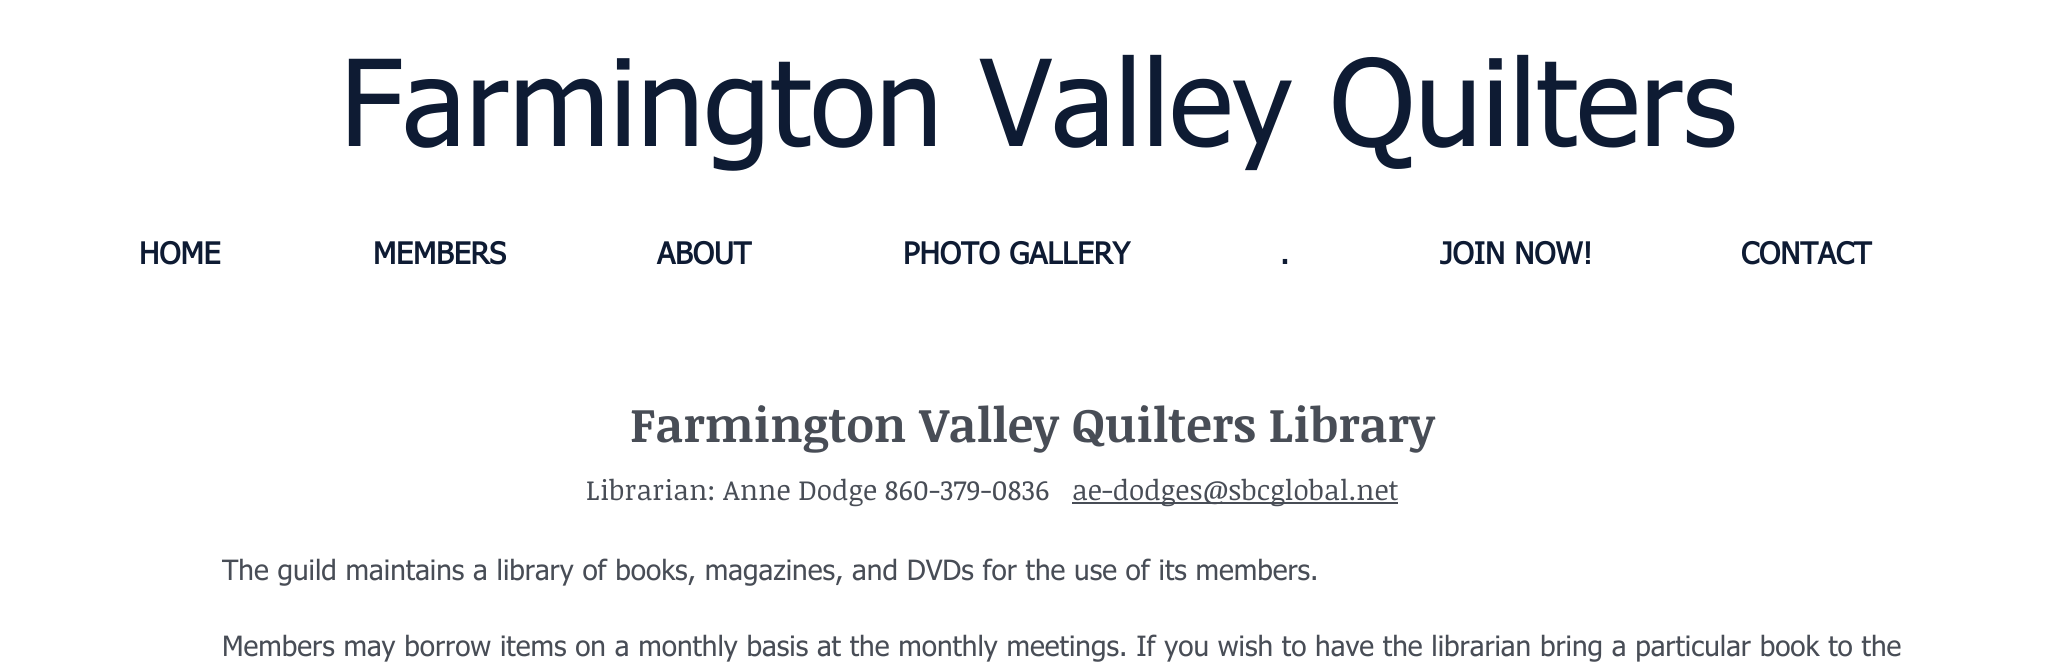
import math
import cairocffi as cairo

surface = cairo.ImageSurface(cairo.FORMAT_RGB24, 2063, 664)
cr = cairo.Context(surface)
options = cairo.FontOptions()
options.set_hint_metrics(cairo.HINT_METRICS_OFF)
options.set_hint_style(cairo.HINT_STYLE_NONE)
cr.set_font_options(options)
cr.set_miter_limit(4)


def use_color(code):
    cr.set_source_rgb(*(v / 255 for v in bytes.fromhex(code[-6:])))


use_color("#ffffff")
cr.paint()
cr.select_font_face("tahoma")
cr.set_font_size(120)
use_color("#0e1b33")
cr.move_to(340, 146)
cr.show_text("Farmington Valley Quilters")
cr.select_font_face("tahoma", cairo.FONT_SLANT_NORMAL, cairo.FONT_WEIGHT_BOLD)
cr.set_font_size(30)
cr.move_to(139, 264)
cr.show_text("HOME")
cr.move_to(373, 264)
cr.show_text("MEMBERS")
cr.move_to(657, 264)
cr.show_text("ABOUT")
cr.move_to(903, 264)
cr.show_text("PHOTO GALLERY")
cr.move_to(1280, 264)
cr.show_text(".")
cr.move_to(1440, 264)
cr.show_text("JOIN NOW!")
cr.move_to(1741, 264)
cr.show_text("CONTACT")
cr.select_font_face("Noticia Text", cairo.FONT_SLANT_NORMAL, cairo.FONT_WEIGHT_BOLD)
cr.set_font_size(48)
use_color("#484d56")
cr.move_to(630, 442)
cr.show_text("Farmington Valley Quilters Library")
cr.select_font_face("Noticia Text")
cr.set_font_size(28)
cr.move_to(586, 500)
cr.show_text("Librarian: Anne Dodge 860-379-0836")
cr.rectangle(1072, 502, 326, 2)
cr.fill()
cr.move_to(1072, 500)
cr.show_text("ae-dodges@sbcglobal.net")
cr.select_font_face("tahoma")
cr.move_to(222, 580)
cr.show_text("The guild maintains a library of books, magazines, and DVDs for the use of its members.")
cr.move_to(222, 656)
cr.show_text("Members may borrow items on a monthly basis at the monthly meetings. If you wish to have the librarian bring a particular book to the")
surface.write_to_png("result.png")
